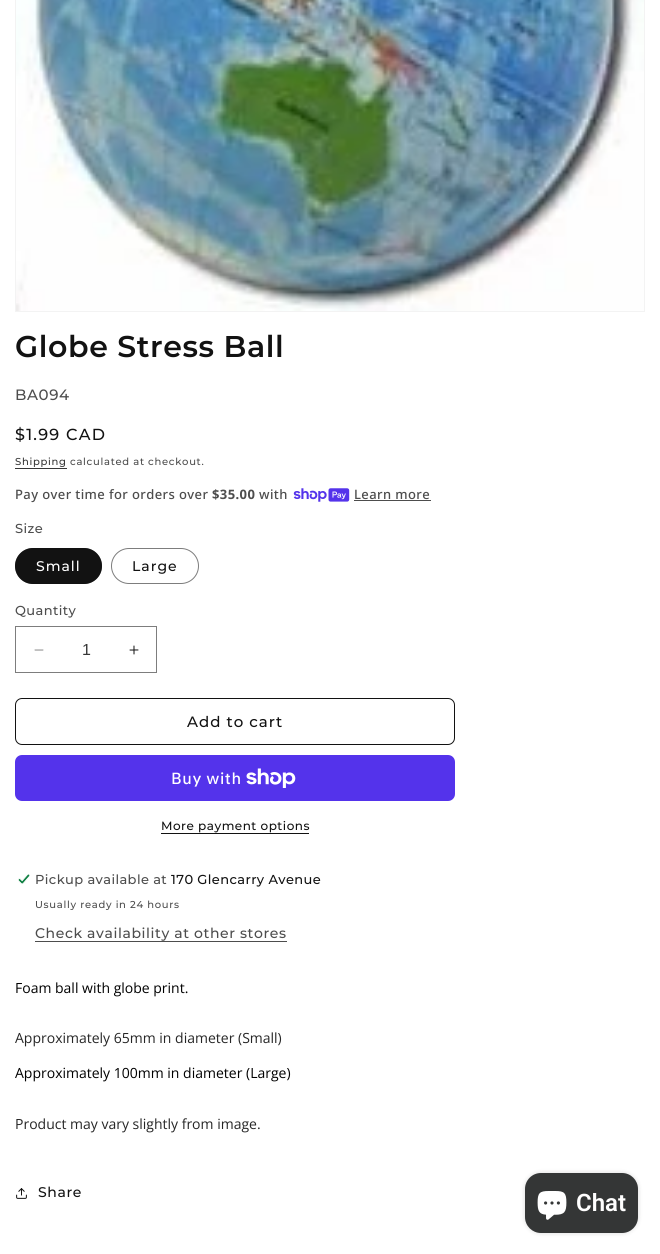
import math
import cairocffi as cairo

surface = cairo.ImageSurface(cairo.FORMAT_RGB24, 660, 1254)
cr = cairo.Context(surface)
options = cairo.FontOptions()
options.set_hint_metrics(cairo.HINT_METRICS_OFF)
options.set_hint_style(cairo.HINT_STYLE_NONE)
cr.set_font_options(options)
cr.set_miter_limit(4)


def use_color(code):
    cr.set_source_rgb(*(v / 255 for v in bytes.fromhex(code[-6:])))


def spaced_text(x, y, s, letter, word):
    cr.move_to(x, y)
    for ch in s:
        cr.show_text(ch)
        cr.rel_move_to(letter + word * (ch == ' '), 0)


def round_rect(x, y, w, h, r):
    cr.new_sub_path()
    for i, (u, v) in enumerate([(x + w - r, y + h - r), (x + r, y + h - r), (x + r, y + r), (x + w - r, y + r)]):
        cr.arc(u, v, r, i * math.pi / 2, (i + 1) * math.pi / 2)
    cr.close_path()


def shadow(x, y, w, h, r, blur, alpha):
    cr.push_group_with_content(cairo.CONTENT_ALPHA)
    cr.set_operator(cairo.OPERATOR_SOURCE)
    for i in range(15, -16, -2):
        e = blur * i / 6
        if min(w, h) + 2 * e > 0:
            cr.set_source_rgba(0, 0, 0, alpha * math.erfc((i - 1) / 8.5) / 2)
            round_rect(x - e, y - e, w + 2 * e, h + 2 * e, max(0, min(r + e + blur * .6, min(w, h) / 2 + e)))
            cr.fill()
    cr.mask(cr.pop_group())


def picture(path, x, y, w, h):
    cr.save()
    cr.set_source_surface(cairo.ImageSurface.create_from_png(path), x, y)
    cr.rectangle(x, y, w, h)
    cr.fill()
    cr.restore()


use_color("#ffffff")
cr.paint()
cr.rectangle(15.5, -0.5, 629, 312)
use_color("#f3f3f3")
cr.set_line_width(1)
cr.stroke()
picture("img1.png", 16, 0, 628, 311)
cr.select_font_face("Montserrat SemiBold")
cr.set_font_size(30)
use_color("#121212")
spaced_text(15, 357, "Globe Stress Ball", 0.6, 0)
cr.select_font_face("Montserrat Medium")
cr.set_font_size(15)
use_color("#4d4d4d")
spaced_text(15, 400, "BA094", 0.6, 0)
cr.set_font_size(16)
use_color("#121212")
spaced_text(15, 440, "$1.99 CAD", 1.25, 0)
cr.set_font_size(10)
use_color("#363636")
spaced_text(15, 465, "Shipping", 0.7, 0)
cr.rectangle(15, 468, 52, 1)
cr.fill()
use_color("#4d4d4d")
spaced_text(70, 465, "calculated at checkout.", 0.7, 0)
cr.select_font_face("Noto Sans Medium")
cr.set_font_size(13)
spaced_text(15, 499, "Pay over time for orders over", 0.4, 0)
cr.select_font_face("Noto Sans", cairo.FONT_SLANT_NORMAL, cairo.FONT_WEIGHT_BOLD)
spaced_text(212, 499, "$35.00", 0.4, 0)
cr.select_font_face("Noto Sans Medium")
spaced_text(259, 499, "with", 0.4, 0)
picture("img2.png", 293, 488, 57, 14)
spaced_text(354, 499, "Learn more", 0.4, 0)
cr.rectangle(354, 500, 77, 1)
cr.fill()
cr.select_font_face("Montserrat Medium")
spaced_text(15, 533, "Size", 0.4, 0)
use_color("#121212")
round_rect(15, 548, 87, 36, 18)
cr.fill()
round_rect(15.5, 548.5, 86, 35, 17.5)
cr.set_source_rgba(0.071, 0.071, 0.071, 0.55)
cr.stroke()
cr.set_font_size(14)
use_color("#ffffff")
spaced_text(36, 571, "Small", 1, 0)
round_rect(111.5, 548.5, 87, 35, 17.5)
use_color("#7d7d7d")
cr.stroke()
use_color("#121212")
spaced_text(132, 571, "Large", 1, 0)
cr.set_font_size(13)
use_color("#4d4d4d")
spaced_text(15, 615, "Quantity", 0.4, 0)
picture("img3.png", 34, 649, 10, 2)
picture("img4.png", 129, 645, 10, 10)
cr.rectangle(15.5, 626.5, 141, 46)
use_color("#7d7d7d")
cr.stroke()
cr.select_font_face("Liberation Sans")
cr.set_font_size(16)
use_color("#363636")
cr.move_to(82, 655)
cr.show_text("1")
round_rect(15.5, 698.5, 439, 46, 6.5)
use_color("#121212")
cr.stroke()
cr.select_font_face("Montserrat Medium")
cr.set_font_size(15)
spaced_text(187, 727, "Add to cart", 1, 0)
use_color("#5433eb")
round_rect(15, 755, 440, 46, 7)
cr.fill()
cr.select_font_face("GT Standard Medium")
cr.set_font_size(16)
use_color("#ffffff")
spaced_text(171, 784, "Buy with", 0.6, 0)
picture("img5.png", 246, 768, 50, 20)
cr.select_font_face("Montserrat Medium")
cr.set_font_size(12)
use_color("#121212")
spaced_text(161, 830, "More payment options", 0.5, 0)
cr.rectangle(161, 833, 148, 1)
cr.fill()
picture("img6.png", 18, 874, 12, 10)
cr.set_font_size(13)
use_color("#4d4d4d")
spaced_text(35, 884, "Pickup available at", 0.4, 0)
use_color("#121212")
spaced_text(171, 884, "170 Glencarry Avenue", 0.4, 0)
cr.set_font_size(10)
use_color("#4d4d4d")
spaced_text(35, 908, "Usually ready in 24 hours", 0.7, 0)
cr.set_font_size(14)
spaced_text(35, 938, "Check availability at other stores", 0.6, 0)
cr.rectangle(35, 941, 252, 1)
cr.fill()
cr.select_font_face("Open Sans")
use_color("#000000")
cr.move_to(15, 993)
cr.show_text("Foam ball with globe print.")
use_color("#262626")
cr.move_to(15, 1043)
cr.show_text("Approximately 65mm in diameter (Small)")
use_color("#000000")
cr.move_to(15, 1078)
cr.show_text("Approximately 100mm in diameter (Large)")
use_color("#262626")
cr.move_to(15, 1129)
cr.show_text("Product may vary slightly from image.")
picture("img7.png", 16, 1188, 11, 11)
cr.select_font_face("Montserrat Medium")
use_color("#121212")
spaced_text(38, 1197, "Share", 0.6, 0)
use_color("#000000")
shadow(525, 1173, 113, 60, 16, 2.5, 0.15)
use_color("#343636")
round_rect(525, 1173, 113, 60, 16)
cr.fill()
picture("img8.png", 537, 1191, 30, 29)
cr.select_font_face("Roboto SemiBold")
cr.set_font_size(24)
use_color("#ffffff")
cr.move_to(576, 1211)
cr.show_text("Chat")
surface.write_to_png("result.png")
